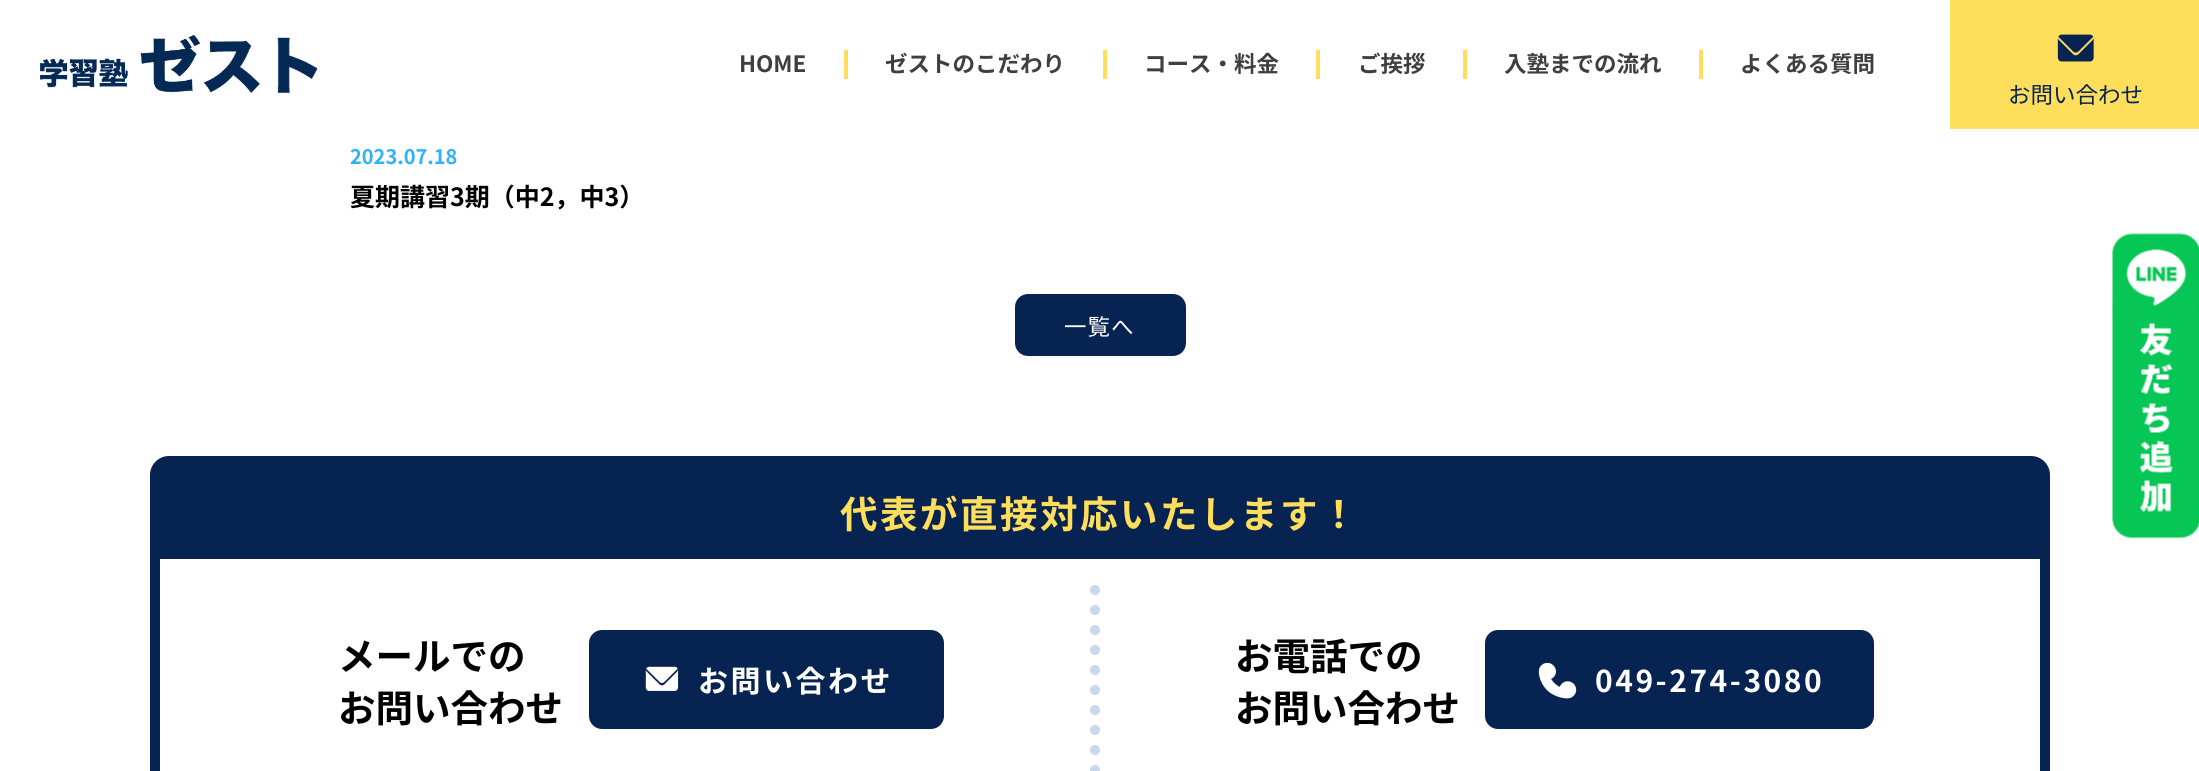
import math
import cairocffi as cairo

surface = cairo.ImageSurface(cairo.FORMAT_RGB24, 2199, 771)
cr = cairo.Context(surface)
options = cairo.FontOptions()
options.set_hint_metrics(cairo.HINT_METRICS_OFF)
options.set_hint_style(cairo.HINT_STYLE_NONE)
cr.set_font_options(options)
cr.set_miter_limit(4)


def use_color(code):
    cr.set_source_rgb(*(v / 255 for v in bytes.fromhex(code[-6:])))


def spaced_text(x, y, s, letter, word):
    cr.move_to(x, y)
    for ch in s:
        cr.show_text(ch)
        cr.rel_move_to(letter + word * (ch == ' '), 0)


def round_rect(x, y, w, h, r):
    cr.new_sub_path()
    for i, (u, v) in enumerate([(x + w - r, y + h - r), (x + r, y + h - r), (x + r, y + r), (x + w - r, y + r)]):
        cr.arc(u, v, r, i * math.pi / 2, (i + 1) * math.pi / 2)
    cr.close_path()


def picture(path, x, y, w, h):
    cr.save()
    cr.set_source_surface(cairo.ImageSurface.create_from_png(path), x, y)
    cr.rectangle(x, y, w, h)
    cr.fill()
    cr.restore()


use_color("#ffffff")
cr.paint()
picture("img1.png", 40, 35, 278, 58)
use_color("#ffde5b")
cr.rectangle(844, 50, 4, 29)
cr.fill()
cr.select_font_face("Noto Sans JP", cairo.FONT_SLANT_NORMAL, cairo.FONT_WEIGHT_BOLD)
cr.set_font_size(22.5)
use_color("#3f3f3f")
cr.move_to(739, 72)
cr.show_text("HOME")
use_color("#ffde5b")
cr.rectangle(1103, 50, 4, 29)
cr.fill()
use_color("#3f3f3f")
cr.move_to(885, 72)
cr.show_text("ゼストのこだわり")
use_color("#ffde5b")
cr.rectangle(1316, 50, 4, 29)
cr.fill()
use_color("#3f3f3f")
cr.move_to(1144, 72)
cr.show_text("コース・料金")
use_color("#ffde5b")
cr.rectangle(1463, 50, 4, 29)
cr.fill()
use_color("#3f3f3f")
cr.move_to(1358, 72)
cr.show_text("ご挨拶")
use_color("#ffde5b")
cr.rectangle(1699, 50, 4, 29)
cr.fill()
use_color("#3f3f3f")
cr.move_to(1504, 72)
cr.show_text("入塾までの流れ")
cr.move_to(1740, 72)
cr.show_text("よくある質問")
use_color("#ffde5b")
cr.rectangle(1950, 0, 249, 129)
cr.fill()
picture("img2.png", 2057, 34, 37, 28)
cr.select_font_face("Noto Sans JP")
use_color("#072351")
cr.move_to(2008, 103)
cr.show_text("お問い合わせ")
cr.select_font_face("Noto Sans JP", cairo.FONT_SLANT_NORMAL, cairo.FONT_WEIGHT_BOLD)
cr.set_font_size(20)
use_color("#2fb1fb")
cr.move_to(350, 164)
cr.show_text("2023.07.18")
cr.set_font_size(25)
use_color("#000000")
cr.move_to(350, 206)
cr.show_text("夏期講習3期（中2，中3）")
use_color("#072351")
round_rect(1015, 294, 171, 62, 13)
cr.fill()
cr.select_font_face("Noto Sans JP")
cr.set_font_size(22.5)
use_color("#ffffff")
spaced_text(1064, 335, "一覧へ", 1, 0)
use_color("#072351")
round_rect(150, 456, 1900, 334, 19)
cr.fill()
cr.select_font_face("Noto Sans JP", cairo.FONT_SLANT_NORMAL, cairo.FONT_WEIGHT_BOLD)
cr.set_font_size(37.5)
use_color("#ffde5b")
spaced_text(840, 528, "代表が直接対応いたします！", 2.5, 0)
use_color("#ffffff")
cr.rectangle(160, 559, 1880, 212)
cr.fill()
cr.new_path()
cr.move_to(1095, 590)
cr.line_to(1095, 770)
use_color("#c9d6ec")
cr.set_line_width(10)
cr.set_line_cap(cairo.LINE_CAP_ROUND)
cr.set_dash([0, 20])
cr.stroke()
use_color("#000000")
cr.move_to(338, 670)
cr.show_text("メールでの")
cr.move_to(338, 722)
cr.show_text("お問い合わせ")
use_color("#072351")
round_rect(589, 630, 355, 99, 13)
cr.fill()
picture("img3.png", 645, 666, 34, 25)
cr.set_font_size(30)
use_color("#ffffff")
spaced_text(698, 692, "お問い合わせ", 2.5, 0)
cr.set_font_size(37.5)
use_color("#000000")
cr.move_to(1235, 670)
cr.show_text("お電話での")
cr.move_to(1235, 722)
cr.show_text("お問い合わせ")
use_color("#072351")
round_rect(1485, 630, 389, 99, 13)
cr.fill()
picture("img4.png", 1538, 662, 39, 37)
cr.set_font_size(30)
use_color("#ffffff")
spaced_text(1595, 692, "049-274-3080", 2.5, 0)
picture("img5.png", 2112, 233, 87, 306)
surface.write_to_png("result.png")
